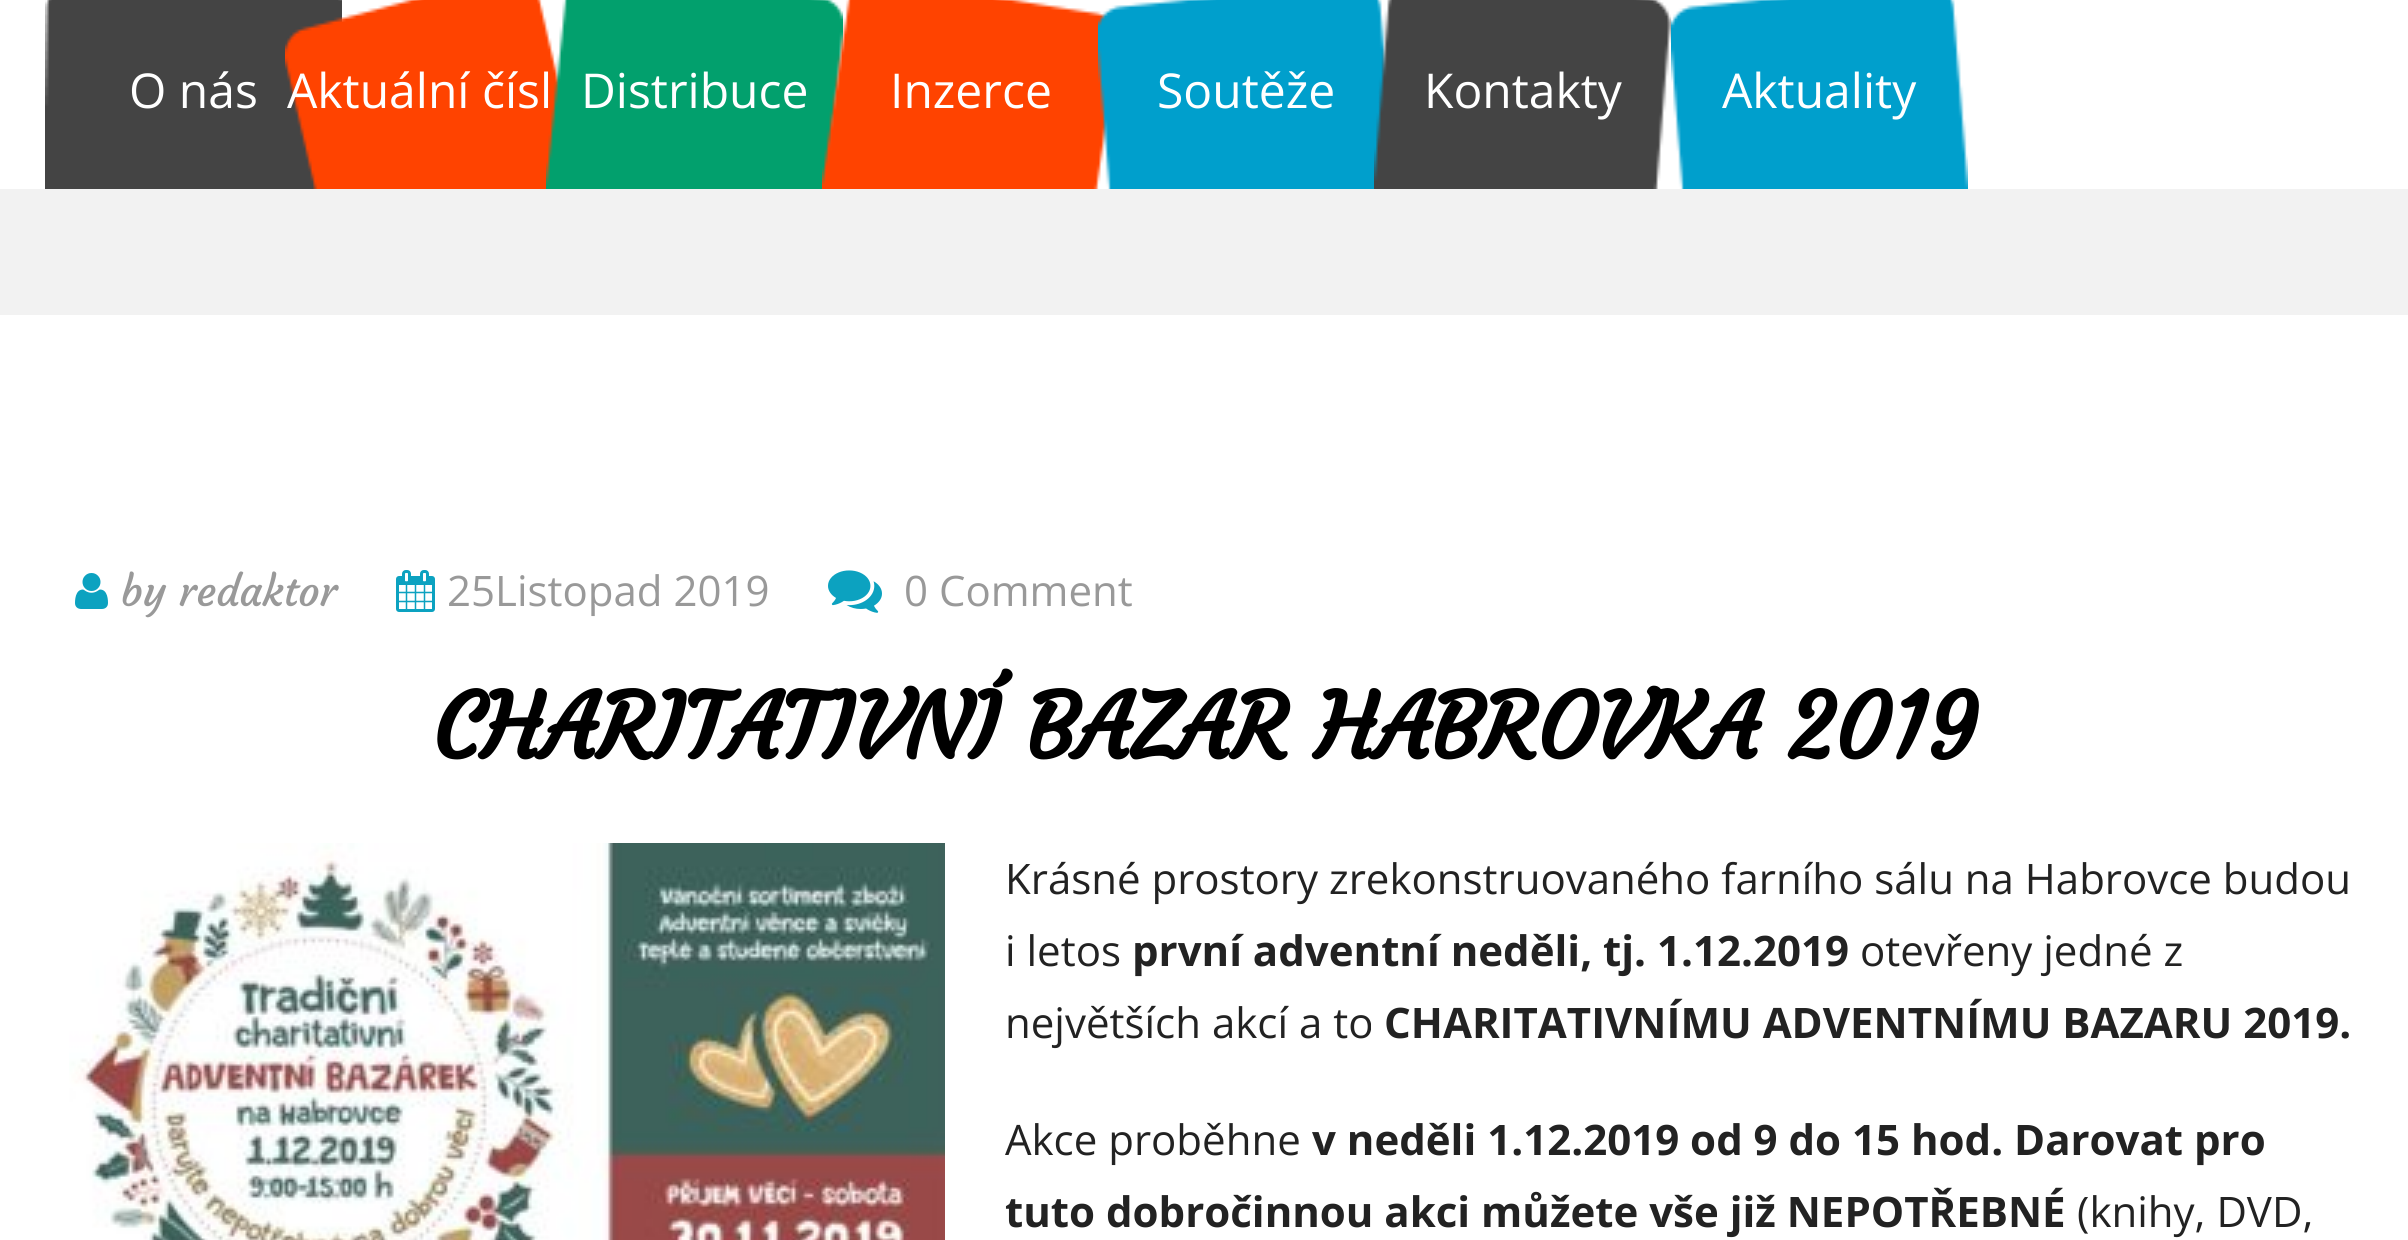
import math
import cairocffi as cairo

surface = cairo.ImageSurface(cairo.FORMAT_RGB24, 2408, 1240)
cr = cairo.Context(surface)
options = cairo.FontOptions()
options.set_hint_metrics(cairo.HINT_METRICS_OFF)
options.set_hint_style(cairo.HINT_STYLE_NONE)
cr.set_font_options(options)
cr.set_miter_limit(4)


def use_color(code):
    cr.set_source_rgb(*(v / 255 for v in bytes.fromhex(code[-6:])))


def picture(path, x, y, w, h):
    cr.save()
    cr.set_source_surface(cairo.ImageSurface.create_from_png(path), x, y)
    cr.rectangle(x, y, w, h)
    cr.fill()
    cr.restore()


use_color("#ffffff")
cr.paint()
picture("img1.png", 45, 0, 297, 189)
cr.select_font_face("Open Sans")
cr.set_font_size(48)
use_color("#ffffff")
cr.move_to(129, 108)
cr.show_text("O nás")
picture("img2.png", 285, 0, 275, 189)
cr.move_to(287, 108)
cr.show_text("Aktuální čísl")
picture("img3.png", 546, 0, 297, 189)
cr.move_to(581, 108)
cr.show_text("Distribuce")
picture("img4.png", 822, 0, 286, 189)
cr.move_to(890, 108)
cr.show_text("Inzerce")
picture("img5.png", 1098, 0, 289, 189)
cr.move_to(1157, 108)
cr.show_text("Soutěže")
picture("img6.png", 1374, 0, 297, 189)
cr.move_to(1424, 108)
cr.show_text("Kontakty")
picture("img7.png", 1671, 0, 297, 189)
cr.move_to(1722, 108)
cr.show_text("Aktuality")
use_color("#f2f2f2")
cr.rectangle(0, 189, 2408, 126)
cr.fill()
picture("img8.png", 75, 573, 33, 36)
cr.select_font_face("Courgette")
cr.set_font_size(42)
use_color("#999999")
cr.move_to(121, 606)
cr.show_text("by redaktor")
picture("img9.png", 396, 570, 39, 42)
cr.select_font_face("Open Sans")
cr.move_to(447, 606)
cr.show_text("25Listopad 2019")
picture("img10.png", 828, 570, 54, 43)
cr.move_to(904, 606)
cr.show_text("0 Comment")
cr.select_font_face("Courgette", cairo.FONT_SLANT_NORMAL, cairo.FONT_WEIGHT_BOLD)
cr.set_font_size(90)
use_color("#000000")
cr.move_to(433, 759)
cr.show_text("CHARITATIVNÍ BAZAR HABROVKA 2019")
picture("img11.png", 69, 843, 876, 397)
cr.select_font_face("Open Sans")
cr.set_font_size(42)
use_color("#222222")
cr.move_to(1005, 894)
cr.show_text("Krásné prostory zrekonstruovaného farního sálu na Habrovce budou")
cr.move_to(1005, 966)
cr.show_text("i letos")
cr.select_font_face("Open Sans", cairo.FONT_SLANT_NORMAL, cairo.FONT_WEIGHT_BOLD)
cr.move_to(1132, 966)
cr.show_text("první adventní neděli, tj. 1.12.2019")
cr.select_font_face("Open Sans")
cr.move_to(1860, 966)
cr.show_text("otevřeny jedné z")
cr.move_to(1005, 1038)
cr.show_text("největších akcí a to")
cr.select_font_face("Open Sans", cairo.FONT_SLANT_NORMAL, cairo.FONT_WEIGHT_BOLD)
cr.move_to(1384, 1038)
cr.show_text("CHARITATIVNÍMU ADVENTNÍMU BAZARU 2019.")
cr.select_font_face("Open Sans")
cr.move_to(1005, 1155)
cr.show_text("Akce proběhne")
cr.select_font_face("Open Sans", cairo.FONT_SLANT_NORMAL, cairo.FONT_WEIGHT_BOLD)
cr.move_to(1312, 1155)
cr.show_text("v neděli 1.12.2019 od 9 do 15 hod. Darovat pro")
cr.move_to(1005, 1227)
cr.show_text("tuto dobročinnou akci můžete vše již NEPOTŘEBNÉ")
cr.select_font_face("Open Sans")
cr.move_to(2077, 1227)
cr.show_text("(knihy, DVD,")
surface.write_to_png("result.png")
